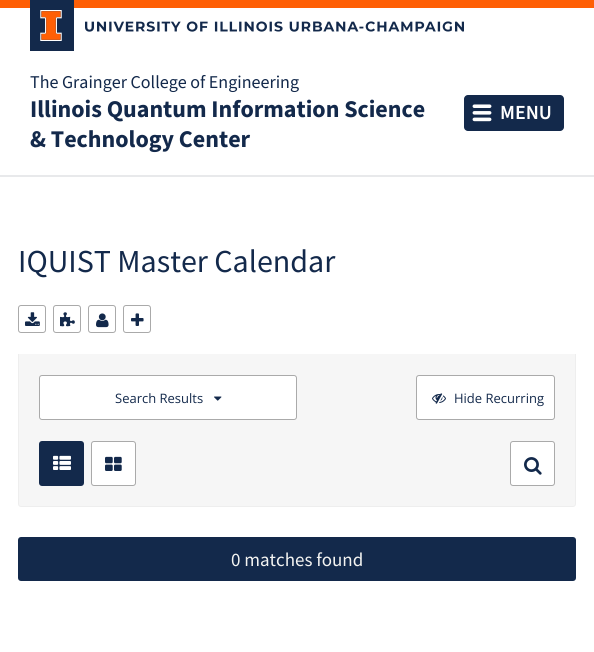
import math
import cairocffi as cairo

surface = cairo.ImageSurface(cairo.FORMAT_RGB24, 594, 652)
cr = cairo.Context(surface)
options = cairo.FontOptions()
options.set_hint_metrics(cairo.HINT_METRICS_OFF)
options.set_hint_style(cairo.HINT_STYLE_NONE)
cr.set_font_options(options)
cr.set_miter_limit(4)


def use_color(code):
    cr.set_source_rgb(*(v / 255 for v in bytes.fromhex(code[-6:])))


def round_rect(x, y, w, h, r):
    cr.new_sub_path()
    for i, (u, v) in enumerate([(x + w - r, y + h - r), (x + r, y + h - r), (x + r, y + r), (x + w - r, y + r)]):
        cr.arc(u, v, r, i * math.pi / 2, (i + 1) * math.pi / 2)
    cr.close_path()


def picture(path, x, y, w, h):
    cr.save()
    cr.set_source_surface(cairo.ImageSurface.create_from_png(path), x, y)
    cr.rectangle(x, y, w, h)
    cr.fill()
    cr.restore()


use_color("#ffffff")
cr.paint()
use_color("#e8e9eb")
cr.rectangle(0, 175, 594, 2)
cr.fill()
use_color("#ff5f05")
cr.rectangle(0, 0, 594, 8)
cr.fill()
use_color("#13294b")
cr.rectangle(30, 0, 44, 51)
cr.fill()
picture("img1.png", 40, 10, 22, 31)
picture("img2.png", 85, 21, 379, 11)
cr.select_font_face("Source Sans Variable")
cr.set_font_size(18)
cr.move_to(30, 88)
cr.show_text("The Grainger College of Engineering")
cr.select_font_face("Source Sans Variable", cairo.FONT_SLANT_NORMAL, cairo.FONT_WEIGHT_BOLD)
cr.set_font_size(24)
cr.move_to(30, 117)
cr.show_text("Illinois Quantum Information Science")
cr.move_to(30, 147)
cr.show_text("& Technology Center")
round_rect(464, 95, 100, 36, 4)
cr.fill()
picture("img3.png", 472, 104, 20, 18)
cr.select_font_face("Source Sans Variable SemiBold")
cr.set_font_size(20)
use_color("#ffffff")
cr.move_to(500, 119)
cr.show_text("MENU")
cr.select_font_face("Source Sans Pro")
cr.set_font_size(32)
use_color("#13294b")
cr.move_to(18, 272)
cr.show_text("IQUIST Master Calendar")
use_color("#f6f6f6")
round_rect(18.5, 305.5, 557, 201, 2.5)
cr.fill_preserve()
use_color("#eeeeee")
cr.set_line_width(1)
cr.stroke()
use_color("#ffffff")
cr.rectangle(18, 305, 558, 49)
cr.fill()
round_rect(18.5, 305.5, 27, 27, 2.5)
use_color("#aaaaaa")
cr.stroke()
picture("img4.png", 25, 312, 15, 14)
round_rect(53.5, 305.5, 27, 27, 2.5)
cr.stroke()
picture("img5.png", 60, 312, 15, 15)
round_rect(88.5, 305.5, 27, 27, 2.5)
cr.stroke()
picture("img6.png", 96, 313, 13, 15)
round_rect(123.5, 305.5, 27, 27, 2.5)
cr.stroke()
picture("img7.png", 131, 313, 13, 13)
use_color("#ffffff")
round_rect(39.5, 375.5, 257, 44, 2.5)
cr.fill_preserve()
use_color("#aaaaaa")
cr.stroke()
cr.select_font_face("Open Sans")
cr.set_font_size(13)
use_color("#13294b")
cr.move_to(115, 403)
cr.show_text("Search Results")
picture("img8.png", 214, 396, 8, 5)
use_color("#ffffff")
round_rect(416.5, 375.5, 138, 44, 2.5)
cr.fill_preserve()
use_color("#aaaaaa")
cr.stroke()
picture("img9.png", 432, 393, 14, 11)
use_color("#13294b")
cr.move_to(454, 403)
cr.show_text("Hide Recurring")
round_rect(39, 441, 45, 45, 3)
cr.fill()
picture("img10.png", 53, 455, 18, 15)
use_color("#ffffff")
round_rect(91.5, 441.5, 44, 44, 2.5)
cr.fill_preserve()
use_color("#aaaaaa")
cr.stroke()
picture("img11.png", 105, 456, 17, 15)
use_color("#ffffff")
round_rect(510.5, 441.5, 44, 44, 2.5)
cr.fill_preserve()
use_color("#aaaaaa")
cr.stroke()
picture("img12.png", 524, 457, 18, 18)
use_color("#13294b")
round_rect(18, 537, 558, 44, 3)
cr.fill()
cr.select_font_face("Source Sans Pro")
cr.set_font_size(19)
use_color("#f4f4f2")
cr.move_to(231, 566)
cr.show_text("0 matches found")
surface.write_to_png("result.png")
